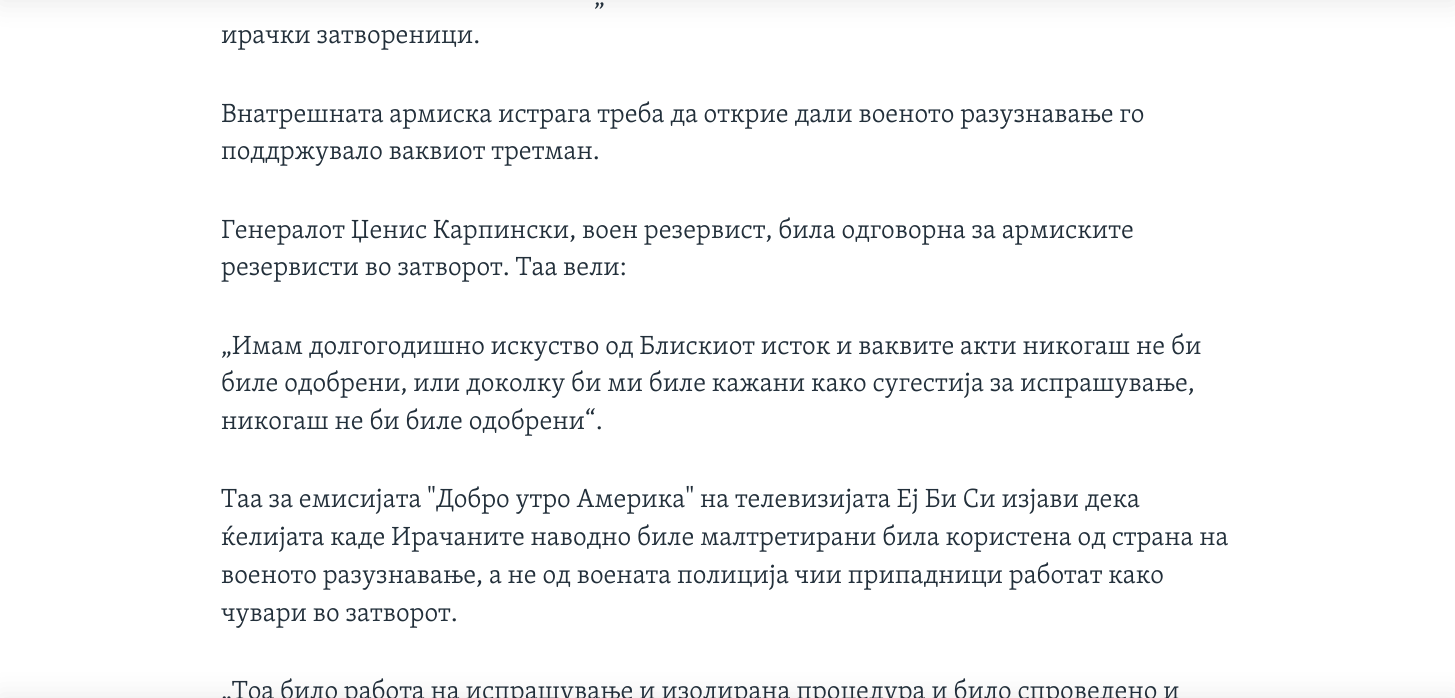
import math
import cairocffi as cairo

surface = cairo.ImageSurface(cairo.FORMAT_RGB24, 1455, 698)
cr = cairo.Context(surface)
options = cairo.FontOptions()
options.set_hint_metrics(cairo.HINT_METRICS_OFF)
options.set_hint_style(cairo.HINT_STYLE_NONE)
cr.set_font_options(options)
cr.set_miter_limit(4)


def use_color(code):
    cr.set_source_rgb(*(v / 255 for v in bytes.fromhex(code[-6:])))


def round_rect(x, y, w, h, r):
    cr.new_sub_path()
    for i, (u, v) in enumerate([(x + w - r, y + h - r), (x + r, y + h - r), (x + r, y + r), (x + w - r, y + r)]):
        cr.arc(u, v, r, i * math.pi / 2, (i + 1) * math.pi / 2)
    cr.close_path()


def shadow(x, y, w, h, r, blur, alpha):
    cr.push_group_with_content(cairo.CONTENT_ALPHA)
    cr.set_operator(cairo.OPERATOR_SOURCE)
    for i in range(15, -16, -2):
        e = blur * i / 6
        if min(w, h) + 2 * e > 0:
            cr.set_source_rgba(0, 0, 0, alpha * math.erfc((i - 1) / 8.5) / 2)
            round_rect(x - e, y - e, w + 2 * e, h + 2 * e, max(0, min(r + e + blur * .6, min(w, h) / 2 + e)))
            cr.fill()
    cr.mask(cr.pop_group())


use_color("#ffffff")
cr.paint()
use_color("#000000")
shadow(0, -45, 1455, 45, 0, 15, 0.1)
shadow(0, 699, 1455, 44, 0, 15, 0.1)
cr.select_font_face("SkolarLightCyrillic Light")
cr.set_font_size(27)
use_color("#222f3a")
cr.move_to(594, 5)
cr.show_text("„")
cr.move_to(221, 43)
cr.show_text("ирачки затвореници.")
cr.move_to(221, 122)
cr.show_text("Внатрешната армиска истрага треба да открие дали военото разузнавање го")
cr.move_to(221, 159)
cr.show_text("поддржувало ваквиот третман.")
cr.move_to(221, 238)
cr.show_text("Генералот Џенис Карпински, воен резервист, била одговорна за армиските")
cr.move_to(221, 275)
cr.show_text("резервисти во затворот. Таа вели:")
cr.move_to(221, 354)
cr.show_text("„Имам долгогодишно искуство од Блискиот исток и ваквите акти никогаш не би")
cr.move_to(221, 391)
cr.show_text("биле одобрени, или доколку би ми биле кажани како сугестија за испрашување,")
cr.move_to(221, 429)
cr.show_text("никогаш не би биле одобрени“.")
cr.move_to(221, 507)
cr.show_text("Таа за емисијата \"Добро утро Америка\" на телевизијата Еј Би Си изјави дека")
cr.move_to(221, 545)
cr.show_text("ќелијата каде Ирачаните наводно биле малтретирани била користена од страна на")
cr.move_to(221, 583)
cr.show_text("военото разузнавање, а не од воената полиција чии припадници работат како")
cr.move_to(221, 621)
cr.show_text("чувари во затворот.")
cr.move_to(221, 699)
cr.show_text("„Тоа било работа на испрашување и изолирана процедура и било спроведено и")
surface.write_to_png("result.png")
